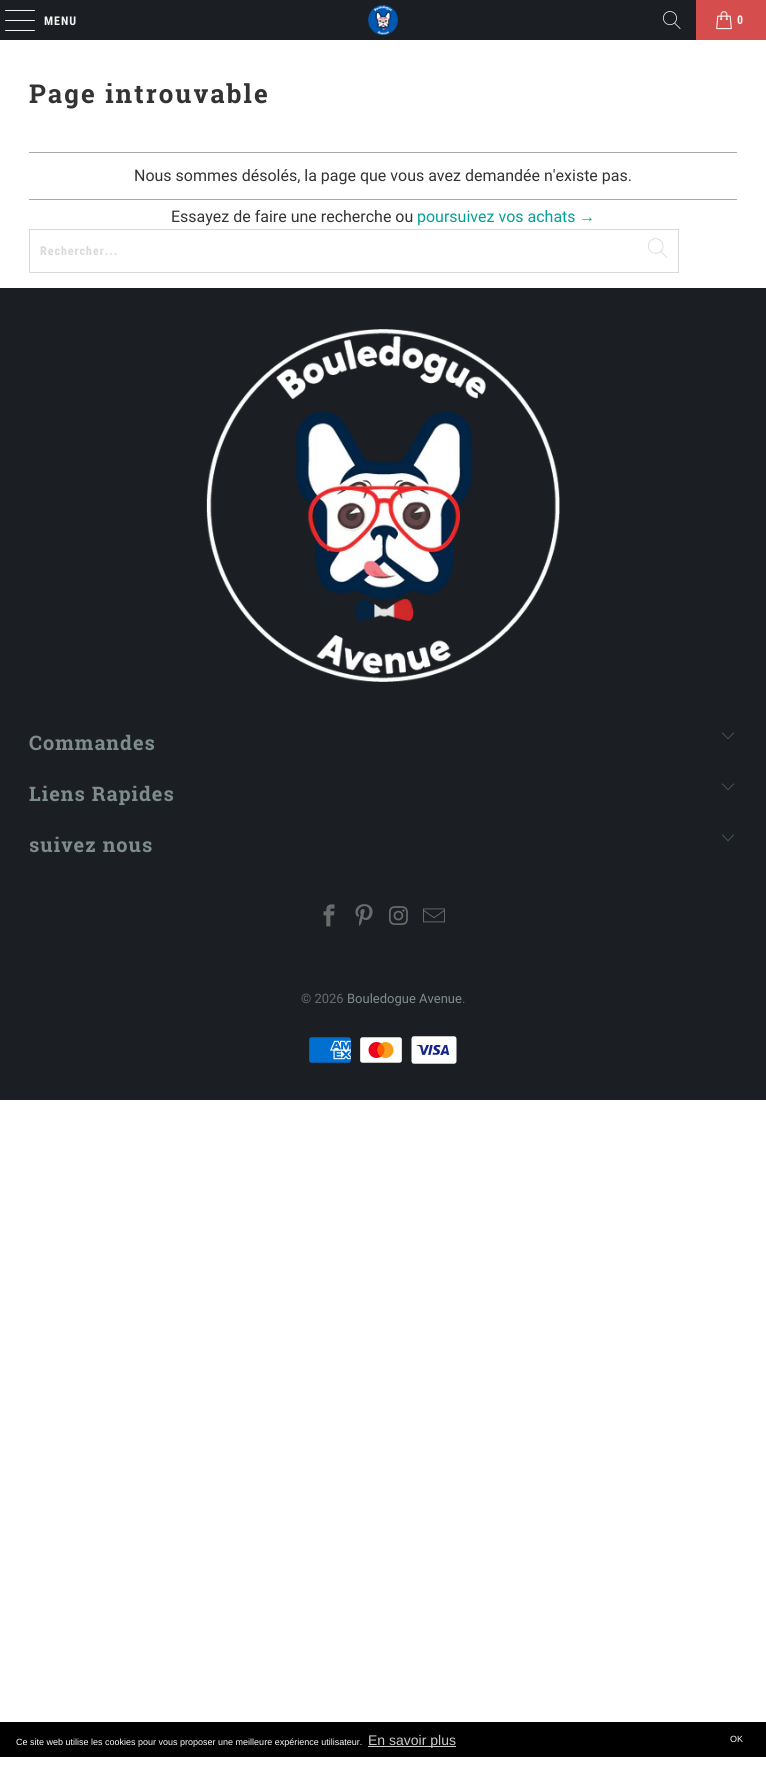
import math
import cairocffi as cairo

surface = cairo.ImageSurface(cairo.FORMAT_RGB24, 766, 1766)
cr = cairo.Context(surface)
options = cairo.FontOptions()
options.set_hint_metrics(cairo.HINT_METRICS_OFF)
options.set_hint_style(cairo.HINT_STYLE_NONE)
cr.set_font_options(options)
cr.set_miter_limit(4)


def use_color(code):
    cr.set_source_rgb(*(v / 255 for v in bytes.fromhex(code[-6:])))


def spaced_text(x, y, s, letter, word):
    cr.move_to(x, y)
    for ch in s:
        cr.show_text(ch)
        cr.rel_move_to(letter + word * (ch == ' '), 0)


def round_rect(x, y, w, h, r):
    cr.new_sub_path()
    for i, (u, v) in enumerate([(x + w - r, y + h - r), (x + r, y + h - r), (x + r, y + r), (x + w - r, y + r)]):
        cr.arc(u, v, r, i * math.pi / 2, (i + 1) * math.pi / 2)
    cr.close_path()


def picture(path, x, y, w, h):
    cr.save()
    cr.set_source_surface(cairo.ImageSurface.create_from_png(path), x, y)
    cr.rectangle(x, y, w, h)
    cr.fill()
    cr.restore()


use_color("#ffffff")
cr.paint()
use_color("#1b1f23")
cr.rectangle(0, 0, 696, 40)
cr.fill()
use_color("#f4f4f4")
round_rect(5, 10, 30, 1, 0.5)
cr.fill()
round_rect(5, 20, 30, 1, 0.5)
cr.fill()
round_rect(5, 30, 30, 1, 0.5)
cr.fill()
cr.select_font_face("Roboto Condensed", cairo.FONT_SLANT_NORMAL, cairo.FONT_WEIGHT_BOLD)
cr.set_font_size(12)
spaced_text(44, 25, "MENU", 1, 0)
picture("img1.png", 368, 5, 30, 30)
picture("img2.png", 663, 11, 18, 18)
use_color("#d54d4d")
cr.rectangle(696, 0, 70, 40)
cr.fill()
picture("img3.png", 716, 11, 16, 19)
use_color("#f4f4f4")
spaced_text(737, 24, "0", 2, 0)
cr.select_font_face("Roboto Slab", cairo.FONT_SLANT_NORMAL, cairo.FONT_WEIGHT_BOLD)
cr.set_font_size(26)
use_color("#333333")
spaced_text(29, 103, "Page introuvable", 2, 0)
use_color("#aaaaaa")
cr.rectangle(29, 152, 708, 1)
cr.fill()
cr.rectangle(29, 199, 708, 1)
cr.fill()
cr.select_font_face("Roboto")
cr.set_font_size(16)
use_color("#333333")
cr.move_to(134, 181)
cr.show_text("Nous sommes désolés, la page que vous avez demandée n'existe pas.")
cr.move_to(171, 222)
cr.show_text("Essayez de faire une recherche ou")
use_color("#03a196")
cr.move_to(417, 222)
cr.show_text("poursuivez vos achats")
cr.select_font_face("Liberation Sans")
cr.move_to(579, 222)
cr.show_text("→")
cr.rectangle(29.5, 229.5, 649, 43)
use_color("#d9d9d9")
cr.set_line_width(1)
cr.stroke()
cr.select_font_face("Roboto Condensed", cairo.FONT_SLANT_NORMAL, cairo.FONT_WEIGHT_BOLD)
cr.set_font_size(12)
spaced_text(40, 255, "Rechercher...", 1, 0)
picture("img4.png", 648, 238, 20, 20)
use_color("#1b1f23")
cr.rectangle(0, 288, 766, 812)
cr.fill()
picture("img5.png", 206, 329, 354, 353)
cr.select_font_face("Roboto Slab", cairo.FONT_SLANT_NORMAL, cairo.FONT_WEIGHT_BOLD)
cr.set_font_size(20)
use_color("#7f8c8d")
spaced_text(29, 750, "Commandes", 1, 0)
picture("img6.png", 722, 732, 12, 7)
spaced_text(29, 801, "Liens Rapides", 1, 0)
picture("img6.png", 722, 783, 12, 7)
spaced_text(29, 852, "suivez nous", 1, 0)
picture("img6.png", 722, 834, 12, 7)
picture("img7.png", 323, 904, 12, 23)
picture("img8.png", 355, 904, 18, 22)
picture("img9.png", 389, 906, 19, 19)
picture("img10.png", 423, 908, 22, 15)
cr.select_font_face("Roboto")
cr.set_font_size(13)
use_color("#6b6b6b")
cr.move_to(301, 1003)
cr.show_text("© 2026")
use_color("#7f8c8d")
cr.move_to(347, 1003)
cr.show_text("Bouledogue Avenue")
use_color("#6b6b6b")
cr.move_to(462, 1003)
cr.show_text(".")
picture("img11.png", 309, 1037, 42, 26)
picture("img12.png", 360, 1037, 42, 26)
picture("img13.png", 411, 1036, 46, 28)
use_color("#000000")
cr.rectangle(0, 1722, 766, 35)
cr.fill()
cr.select_font_face("Liberation Sans")
cr.set_font_size(9)
use_color("#ffffff")
cr.move_to(16, 1745)
cr.show_text("Ce site web utilise les cookies pour vous proposer une meilleure expérience utilisateur.")
use_color("#cccccc")
cr.rectangle(368, 1746, 88, 1)
cr.fill()
cr.set_font_size(14)
cr.move_to(368, 1745)
cr.show_text("En savoir plus")
cr.set_font_size(9)
use_color("#ffffff")
cr.move_to(730, 1742)
cr.show_text("OK")
surface.write_to_png("result.png")
